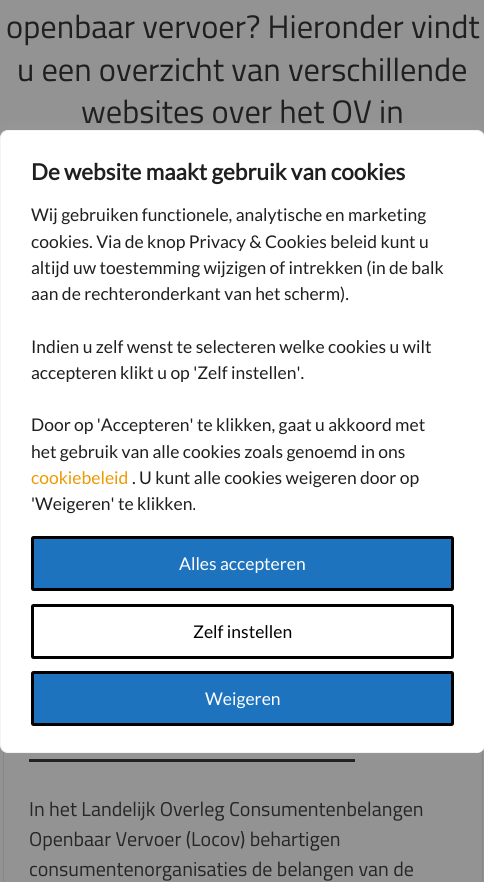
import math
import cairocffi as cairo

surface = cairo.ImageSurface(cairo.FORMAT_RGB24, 484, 882)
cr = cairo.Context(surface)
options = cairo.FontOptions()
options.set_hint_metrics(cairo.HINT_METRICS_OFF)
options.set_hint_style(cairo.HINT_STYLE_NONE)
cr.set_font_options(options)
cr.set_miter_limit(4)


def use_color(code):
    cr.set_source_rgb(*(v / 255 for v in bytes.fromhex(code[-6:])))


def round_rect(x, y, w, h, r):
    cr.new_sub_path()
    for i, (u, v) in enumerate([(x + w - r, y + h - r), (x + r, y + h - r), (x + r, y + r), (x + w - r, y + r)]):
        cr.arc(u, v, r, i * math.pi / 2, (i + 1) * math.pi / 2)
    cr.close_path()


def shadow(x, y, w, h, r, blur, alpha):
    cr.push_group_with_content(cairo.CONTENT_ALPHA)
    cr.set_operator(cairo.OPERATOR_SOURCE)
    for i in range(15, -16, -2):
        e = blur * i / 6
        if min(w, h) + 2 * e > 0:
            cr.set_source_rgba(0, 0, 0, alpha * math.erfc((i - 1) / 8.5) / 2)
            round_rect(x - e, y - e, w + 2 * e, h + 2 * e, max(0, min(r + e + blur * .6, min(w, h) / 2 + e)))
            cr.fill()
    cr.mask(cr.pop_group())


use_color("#939393")
cr.paint()
cr.select_font_face("Titillium Web")
cr.set_font_size(32.5)
use_color("#1f1f1f")
cr.move_to(6, 38)
cr.show_text("openbaar vervoer? Hieronder vindt")
cr.move_to(17, 81)
cr.show_text("u een overzicht van verschillende")
cr.move_to(81, 123)
cr.show_text("websites over het OV in")
cr.rectangle(3.5, 703.5, 479, 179)
use_color("#878787")
cr.set_line_width(1)
cr.stroke()
use_color("#1f1f1f")
cr.rectangle(29, 759, 326, 3)
cr.fill()
cr.set_font_size(20)
use_color("#262626")
cr.move_to(29, 816)
cr.show_text("In het Landelijk Overleg Consumentenbelangen")
cr.move_to(29, 846)
cr.show_text("Openbaar Vervoer (Locov) behartigen")
cr.move_to(29, 876)
cr.show_text("consumentenorganisaties de belangen van de")
use_color("#acabab")
shadow(0, 129, 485, 622, 8, 6, 0.3)
use_color("#ffffff")
round_rect(0.5, 130.5, 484, 622, 7.5)
cr.fill_preserve()
use_color("#f4f4f4")
cr.stroke()
cr.select_font_face("Lato", cairo.FONT_SLANT_NORMAL, cairo.FONT_WEIGHT_BOLD)
cr.set_font_size(22.5)
use_color("#1f1f1f")
cr.move_to(31, 180)
cr.show_text("De website maakt gebruik van cookies")
cr.select_font_face("Lato")
cr.set_font_size(17.5)
cr.move_to(31, 221)
cr.show_text("Wij gebruiken functionele, analytische en marketing")
cr.move_to(31, 248)
cr.show_text("cookies. Via de knop Privacy & Cookies beleid kunt u")
cr.move_to(31, 274)
cr.show_text("altijd uw toestemming wijzigen of intrekken (in de balk")
cr.move_to(31, 300)
cr.show_text("aan de rechteronderkant van het scherm).")
cr.move_to(31, 353)
cr.show_text("Indien u zelf wenst te selecteren welke cookies u wilt")
cr.move_to(31, 379)
cr.show_text("accepteren klikt u op 'Zelf instellen'.")
cr.move_to(31, 431)
cr.show_text("Door op 'Accepteren' te klikken, gaat u akkoord met")
cr.move_to(31, 458)
cr.show_text("het gebruik van alle cookies zoals genoemd in ons")
use_color("#ee9902")
cr.move_to(31, 484)
cr.show_text("cookiebeleid")
use_color("#1f1f1f")
cr.move_to(132, 484)
cr.show_text(". U kunt alle cookies weigeren door op")
cr.move_to(31, 510)
cr.show_text("'Weigeren' te klikken.")
use_color("#1e73be")
round_rect(32.5, 537.5, 420, 52, 1)
cr.fill_preserve()
use_color("#000000")
cr.set_line_width(3)
cr.stroke()
use_color("#ffffff")
cr.move_to(179, 570)
cr.show_text("Alles accepteren")
round_rect(32.5, 605.5, 420, 52, 1)
use_color("#000000")
cr.stroke()
cr.move_to(193, 638)
cr.show_text("Zelf instellen")
use_color("#1e73be")
round_rect(32.5, 672.5, 420, 52, 1)
cr.fill_preserve()
use_color("#000000")
cr.stroke()
use_color("#ffffff")
cr.move_to(205, 705)
cr.show_text("Weigeren")
surface.write_to_png("result.png")
